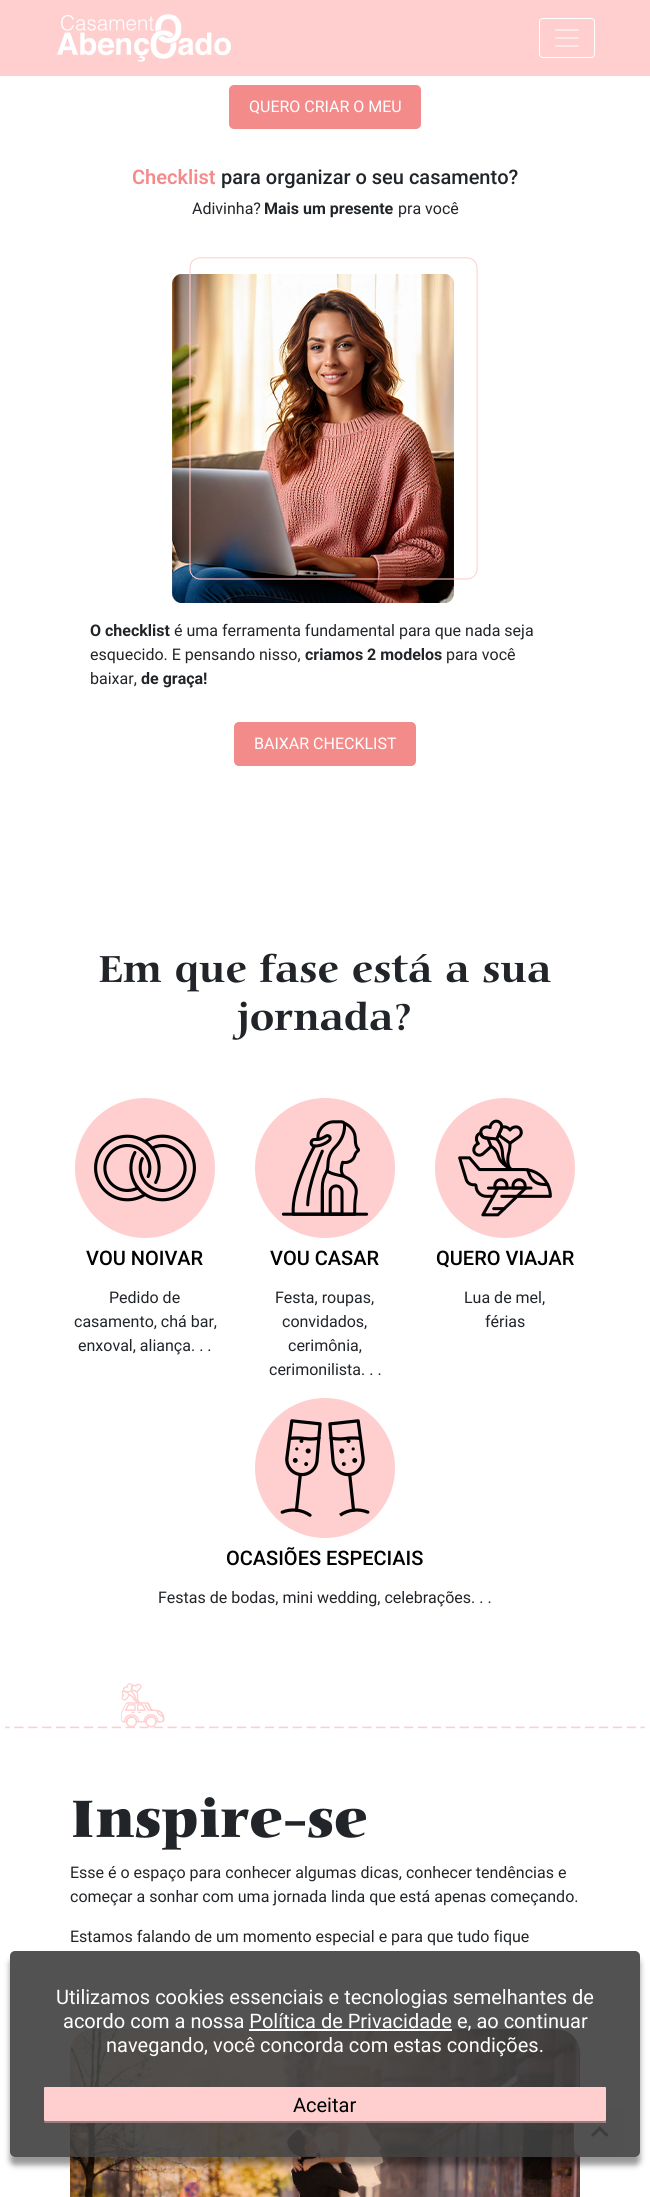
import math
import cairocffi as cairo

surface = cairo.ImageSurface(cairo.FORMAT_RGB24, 650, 2197)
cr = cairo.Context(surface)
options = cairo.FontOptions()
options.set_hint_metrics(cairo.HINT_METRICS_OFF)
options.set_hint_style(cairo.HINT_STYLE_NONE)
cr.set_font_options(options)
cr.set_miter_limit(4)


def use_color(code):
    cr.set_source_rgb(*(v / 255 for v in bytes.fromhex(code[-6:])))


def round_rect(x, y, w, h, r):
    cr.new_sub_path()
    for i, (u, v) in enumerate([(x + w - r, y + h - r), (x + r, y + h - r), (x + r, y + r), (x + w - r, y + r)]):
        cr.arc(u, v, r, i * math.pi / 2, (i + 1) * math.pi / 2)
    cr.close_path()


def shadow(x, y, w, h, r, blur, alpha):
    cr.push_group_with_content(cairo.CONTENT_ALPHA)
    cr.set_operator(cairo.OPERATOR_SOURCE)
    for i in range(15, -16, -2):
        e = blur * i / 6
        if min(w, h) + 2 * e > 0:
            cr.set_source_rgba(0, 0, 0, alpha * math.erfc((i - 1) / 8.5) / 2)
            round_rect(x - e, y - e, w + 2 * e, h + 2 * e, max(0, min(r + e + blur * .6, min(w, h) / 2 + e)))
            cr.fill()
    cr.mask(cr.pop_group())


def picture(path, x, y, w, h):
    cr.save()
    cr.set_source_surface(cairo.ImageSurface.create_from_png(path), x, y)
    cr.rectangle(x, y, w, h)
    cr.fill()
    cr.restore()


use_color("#ffffff")
cr.paint()
use_color("#ffcfcf")
cr.rectangle(0, 0, 650, 76)
cr.fill()
picture("img1.png", 57, 14, 174, 48)
round_rect(539.5, 18.5, 55, 39, 3.5)
use_color("#ffffff")
cr.set_line_width(1)
cr.stroke()
picture("img2.png", 555, 29, 24, 18)
use_color("#f48b8b")
round_rect(229, 85, 192, 44, 5)
cr.fill()
cr.select_font_face("Roboto")
cr.set_font_size(16)
use_color("#ffffff")
cr.move_to(249, 112)
cr.show_text("QUERO CRIAR O MEU")
cr.select_font_face("Roboto SemiBold")
cr.set_font_size(20)
use_color("#f48b8b")
cr.move_to(132, 184)
cr.show_text("Checklist")
cr.select_font_face("Roboto Medium")
use_color("#212529")
cr.move_to(221, 184)
cr.show_text("para organizar o seu casamento?")
cr.select_font_face("Roboto")
cr.set_font_size(16)
cr.move_to(192, 214)
cr.show_text("Adivinha?")
cr.select_font_face("Roboto", cairo.FONT_SLANT_NORMAL, cairo.FONT_WEIGHT_BOLD)
cr.move_to(264, 214)
cr.show_text("Mais um presente")
cr.select_font_face("Roboto")
cr.move_to(398, 214)
cr.show_text("pra você")
picture("img3.png", 172, 257, 306, 346)
cr.select_font_face("Roboto", cairo.FONT_SLANT_NORMAL, cairo.FONT_WEIGHT_BOLD)
cr.move_to(90, 636)
cr.show_text("O checklist")
cr.select_font_face("Roboto")
cr.move_to(174, 636)
cr.show_text("é uma ferramenta fundamental para que nada seja")
cr.move_to(90, 660)
cr.show_text("esquecido. E pensando nisso,")
cr.select_font_face("Roboto", cairo.FONT_SLANT_NORMAL, cairo.FONT_WEIGHT_BOLD)
cr.move_to(305, 660)
cr.show_text("criamos 2 modelos")
cr.select_font_face("Roboto")
cr.move_to(446, 660)
cr.show_text("para você")
cr.move_to(90, 684)
cr.show_text("baixar,")
cr.select_font_face("Roboto", cairo.FONT_SLANT_NORMAL, cairo.FONT_WEIGHT_BOLD)
cr.move_to(141, 684)
cr.show_text("de graça!")
use_color("#f48b8b")
round_rect(234, 722, 182, 44, 5)
cr.fill()
cr.select_font_face("Roboto")
use_color("#ffffff")
cr.move_to(254, 749)
cr.show_text("BAIXAR CHECKLIST")
cr.select_font_face("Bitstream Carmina", cairo.FONT_SLANT_NORMAL, cairo.FONT_WEIGHT_BOLD)
cr.set_font_size(40)
use_color("#212529")
cr.move_to(98, 982)
cr.show_text("Em que fase está a sua")
cr.move_to(237, 1030)
cr.show_text("jornada?")
use_color("#ffcfcf")
cr.new_path()
cr.arc(145, 1168, 70, 0, 2 * math.pi)
cr.fill()
picture("img4.png", 94, 1134, 102, 68)
cr.select_font_face("Roboto Medium")
cr.set_font_size(20)
use_color("#000000")
cr.move_to(86, 1265)
cr.show_text("VOU NOIVAR")
cr.select_font_face("Roboto")
cr.set_font_size(16)
use_color("#212529")
cr.move_to(109, 1303)
cr.show_text("Pedido de")
cr.move_to(74, 1327)
cr.show_text("casamento, chá bar,")
cr.move_to(78, 1351)
cr.show_text("enxoval, aliança. . .")
use_color("#ffcfcf")
cr.new_path()
cr.arc(325, 1168, 70, 0, 2 * math.pi)
cr.fill()
picture("img5.png", 281, 1120, 88, 96)
cr.select_font_face("Roboto Medium")
cr.set_font_size(20)
use_color("#000000")
cr.move_to(270, 1265)
cr.show_text("VOU CASAR")
cr.select_font_face("Roboto")
cr.set_font_size(16)
use_color("#212529")
cr.move_to(275, 1303)
cr.show_text("Festa, roupas,")
cr.move_to(282, 1327)
cr.show_text("convidados,")
cr.move_to(288, 1351)
cr.show_text("cerimônia,")
cr.move_to(269, 1375)
cr.show_text("cerimonilista. . .")
use_color("#ffcfcf")
cr.new_path()
cr.arc(505, 1168, 70, 0, 2 * math.pi)
cr.fill()
picture("img6.png", 458, 1119, 94, 98)
cr.select_font_face("Roboto Medium")
cr.set_font_size(20)
use_color("#000000")
cr.move_to(436, 1265)
cr.show_text("QUERO VIAJAR")
cr.select_font_face("Roboto")
cr.set_font_size(16)
use_color("#212529")
cr.move_to(464, 1303)
cr.show_text("Lua de mel,")
cr.move_to(485, 1327)
cr.show_text("férias")
use_color("#ffcfcf")
cr.new_path()
cr.arc(325, 1468, 70, 0, 2 * math.pi)
cr.fill()
picture("img7.png", 280, 1419, 90, 98)
cr.select_font_face("Roboto Medium")
cr.set_font_size(20)
use_color("#000000")
cr.move_to(226, 1565)
cr.show_text("OCASIÕES ESPECIAIS")
cr.select_font_face("Roboto")
cr.set_font_size(16)
use_color("#212529")
cr.move_to(158, 1603)
cr.show_text("Festas de bodas, mini wedding, celebrações. . .")
picture("img8.png", 5, 1683, 640, 46)
cr.select_font_face("Bitstream Carmina Black")
cr.set_font_size(56)
cr.move_to(70, 1837)
cr.show_text("Inspire-se")
cr.select_font_face("Roboto")
cr.set_font_size(16)
cr.move_to(70, 1878)
cr.show_text("Esse é o espaço para conhecer algumas dicas, conhecer tendências e")
cr.move_to(70, 1902)
cr.show_text("começar a sonhar com uma jornada linda que está apenas começando.")
cr.move_to(70, 1942)
cr.show_text("Estamos falando de um momento especial e para que tudo fique")
picture("img9.png", 70, 2029, 510, 168)
use_color("#f8f9fa")
round_rect(574.5, 2108.5, 50, 47, 7.5)
cr.fill_preserve()
cr.stroke()
picture("img10.png", 591, 2126, 18, 11)
cr.save()
cr.set_fill_rule(cairo.FILL_RULE_EVEN_ODD)
cr.new_path()
cr.move_to(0, 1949)
cr.line_to(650, 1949)
cr.line_to(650, 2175)
cr.line_to(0, 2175)
cr.close_path()
cr.move_to(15, 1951)
cr.line_to(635, 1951)
cr.curve_to(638, 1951, 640, 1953, 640, 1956)
cr.line_to(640, 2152)
cr.curve_to(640, 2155, 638, 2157, 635, 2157)
cr.line_to(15, 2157)
cr.curve_to(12, 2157, 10, 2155, 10, 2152)
cr.line_to(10, 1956)
cr.curve_to(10, 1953, 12, 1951, 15, 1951)
cr.close_path()
cr.clip()
use_color("#000000")
shadow(10, 1959, 630, 206, 5, 3, 0.41)
cr.restore()
cr.set_source_rgba(0.251, 0.251, 0.251, 0.9)
round_rect(10, 1951, 630, 206, 5)
cr.fill()
cr.set_font_size(20)
use_color("#ffffff")
cr.move_to(56, 2004)
cr.show_text("Utilizamos cookies essenciais e tecnologias semelhantes de")
cr.move_to(63, 2028)
cr.show_text("acordo com a nossa Política de Privacidade e, ao continuar")
cr.rectangle(249, 2029, 203, 2)
cr.fill()
cr.move_to(106, 2052)
cr.show_text("navegando, você concorda com estas condições.")
use_color("#ffcfcf")
round_rect(44, 2087, 562, 36, 1)
cr.fill()
cr.set_source_rgba(0, 0, 0, 0.4)
cr.new_path()
cr.move_to(44, 2120)
cr.line_to(44, 2123)
cr.line_to(45, 2123)
cr.line_to(605, 2123)
cr.curve_to(606, 2123, 606, 2121, 606, 2120)
cr.line_to(605, 2121)
cr.line_to(45, 2121)
cr.close_path()
cr.fill()
use_color("#000000")
cr.move_to(293, 2112)
cr.show_text("Aceitar")
surface.write_to_png("result.png")
